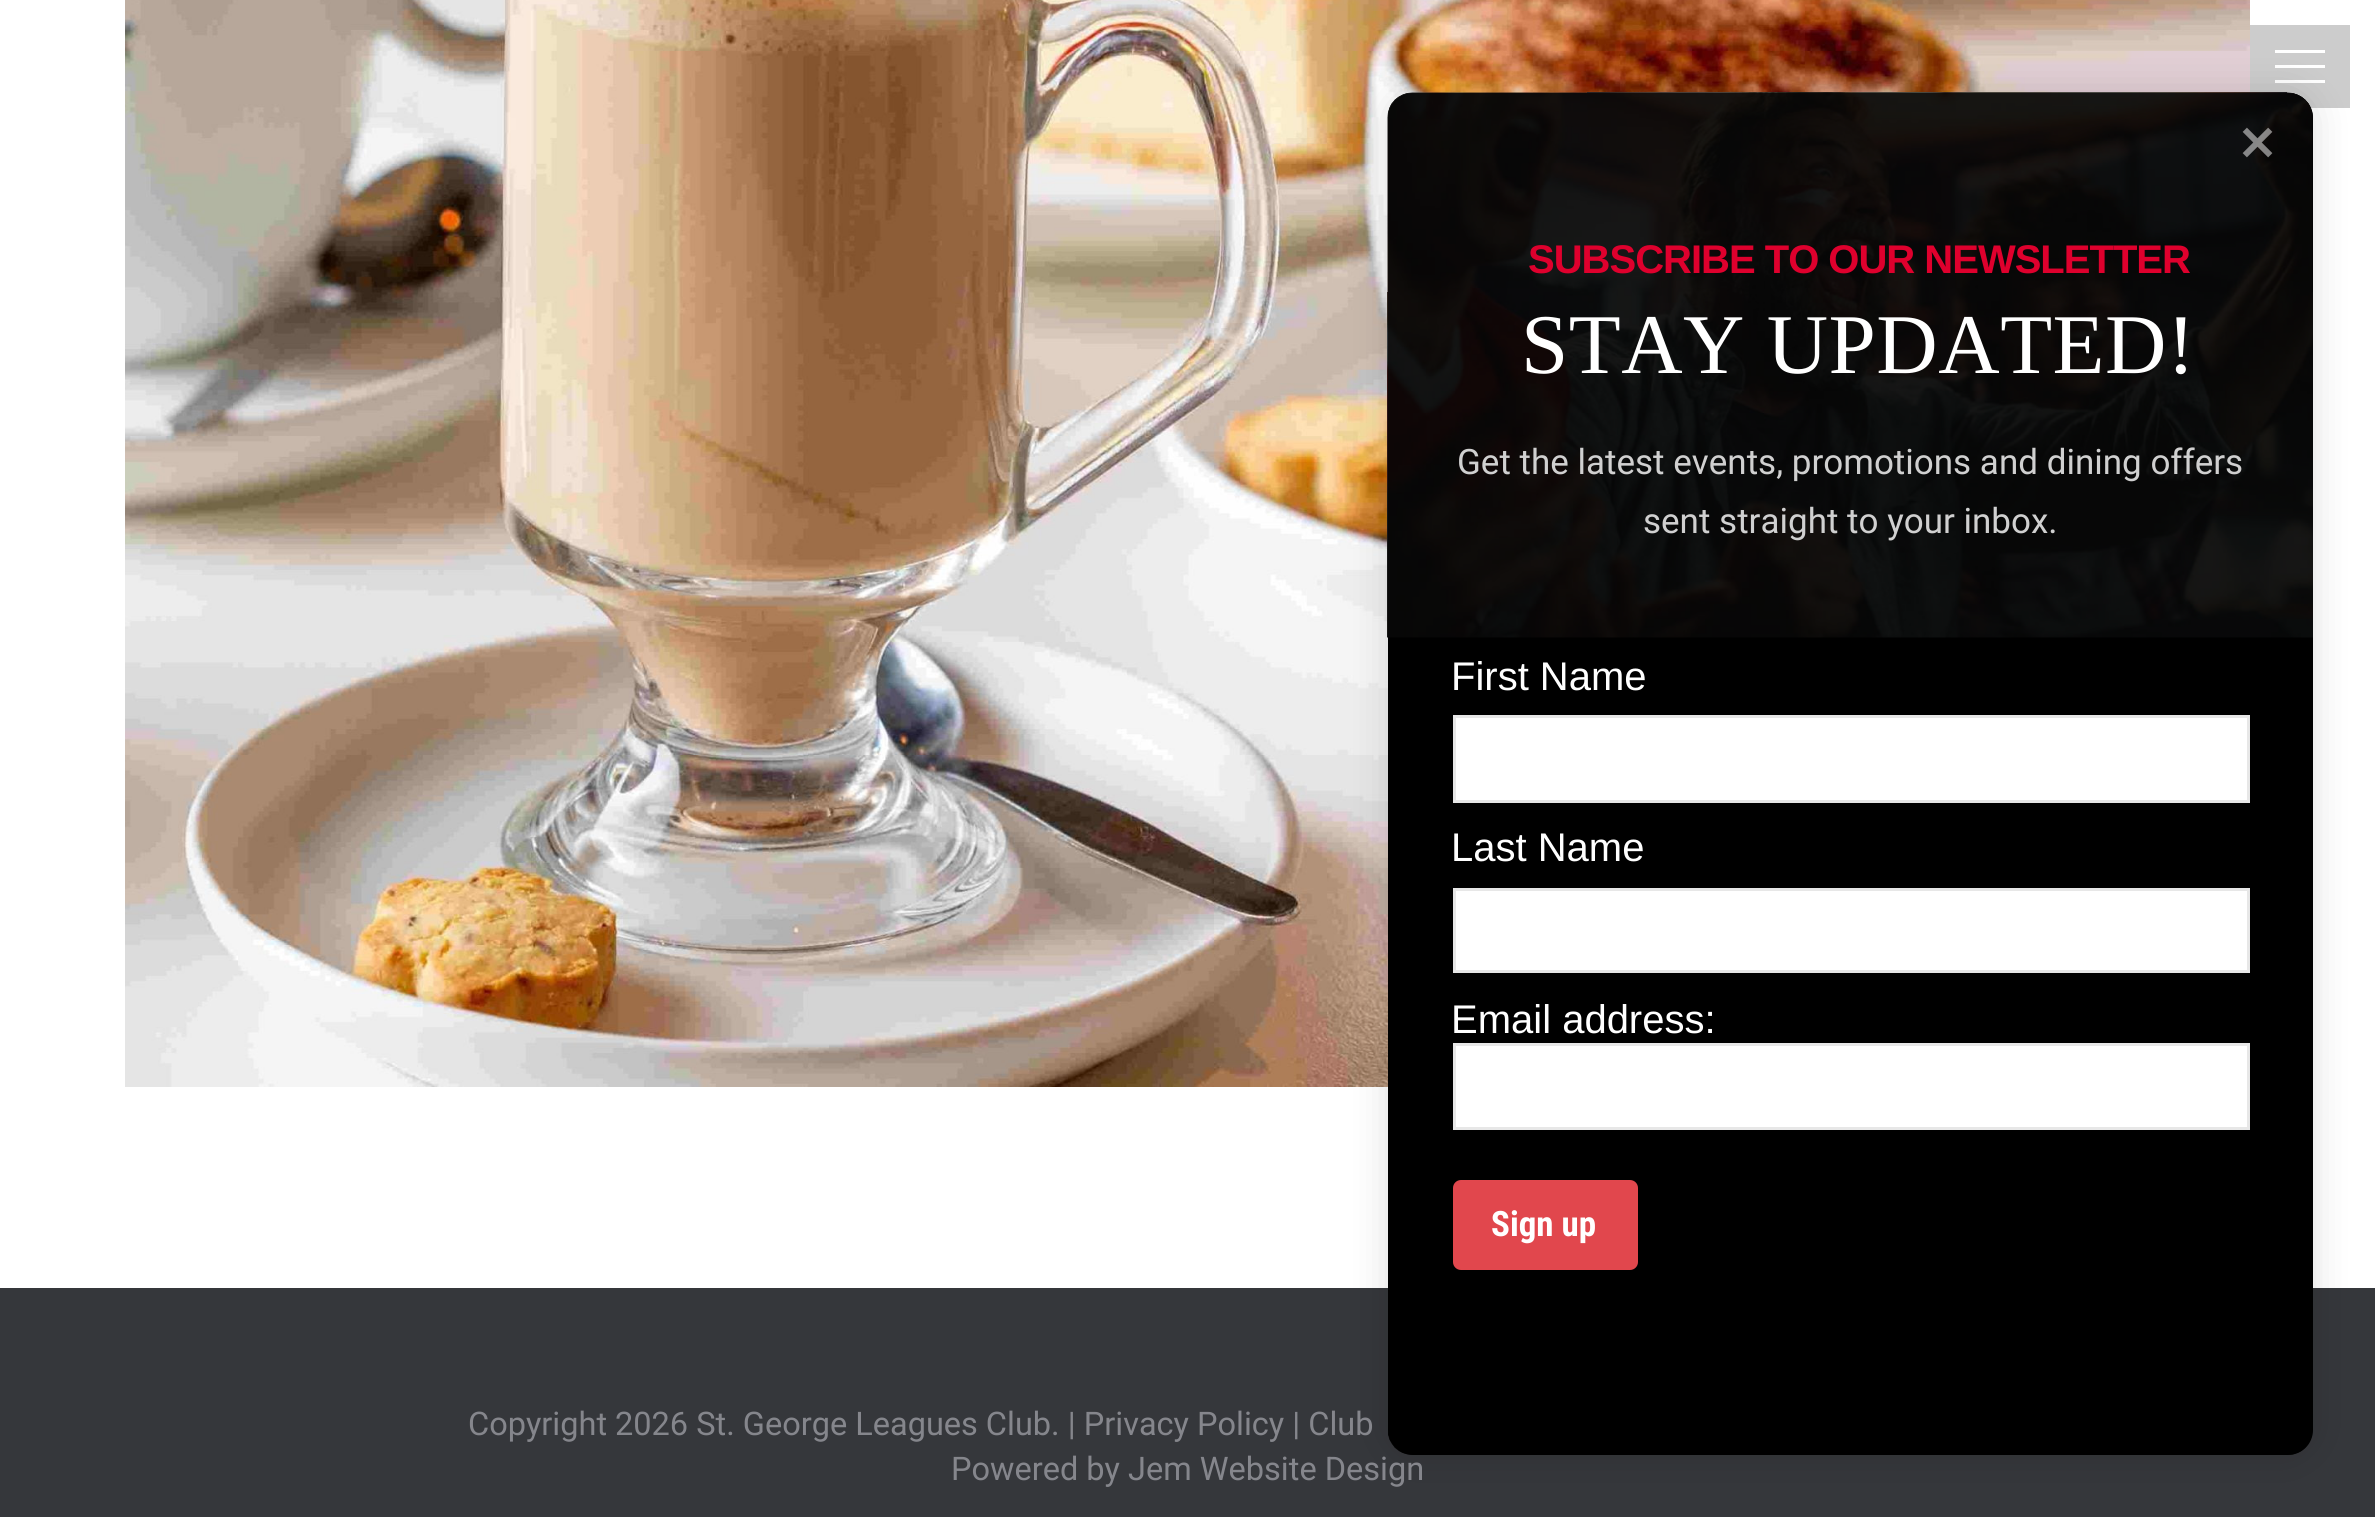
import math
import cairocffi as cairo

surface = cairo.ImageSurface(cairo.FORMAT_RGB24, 2375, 1517)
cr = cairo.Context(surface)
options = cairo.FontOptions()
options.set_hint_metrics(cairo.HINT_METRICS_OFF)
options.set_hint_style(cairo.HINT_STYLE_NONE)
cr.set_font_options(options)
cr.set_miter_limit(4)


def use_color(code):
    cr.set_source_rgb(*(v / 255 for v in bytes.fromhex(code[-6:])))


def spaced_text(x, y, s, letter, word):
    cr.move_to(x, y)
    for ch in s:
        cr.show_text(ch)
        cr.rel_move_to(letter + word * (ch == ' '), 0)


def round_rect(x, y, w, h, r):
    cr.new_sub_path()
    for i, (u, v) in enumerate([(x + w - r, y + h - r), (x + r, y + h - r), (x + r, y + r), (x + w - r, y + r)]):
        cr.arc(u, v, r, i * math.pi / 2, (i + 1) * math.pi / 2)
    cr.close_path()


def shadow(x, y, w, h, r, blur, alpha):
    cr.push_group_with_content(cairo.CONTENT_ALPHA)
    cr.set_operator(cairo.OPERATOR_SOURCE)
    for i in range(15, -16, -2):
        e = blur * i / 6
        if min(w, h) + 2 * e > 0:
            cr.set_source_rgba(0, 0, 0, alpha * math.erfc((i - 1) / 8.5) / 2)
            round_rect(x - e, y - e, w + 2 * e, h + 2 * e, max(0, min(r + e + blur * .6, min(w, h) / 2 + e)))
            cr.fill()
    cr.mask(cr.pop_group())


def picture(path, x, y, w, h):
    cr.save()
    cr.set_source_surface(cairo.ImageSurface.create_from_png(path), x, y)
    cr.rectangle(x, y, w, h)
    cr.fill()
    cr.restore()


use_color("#ffffff")
cr.paint()
picture("img4.png", 125, 0, 2125, 1087)
use_color("#cccccc")
cr.rectangle(2250, 25, 100, 83)
cr.fill()
use_color("#ffffff")
cr.rectangle(2275, 50, 50, 3)
cr.fill()
cr.rectangle(2275, 65, 50, 3)
cr.fill()
cr.rectangle(2275, 80, 50, 3)
cr.fill()
use_color("#35373b")
cr.rectangle(0, 1288, 2375, 229)
cr.fill()
use_color("#000000")
shadow(1388, 93, 925, 1362, 25, 19, 0.13)
picture("img2.png", 1388, 93, 925, 1362)
use_color("#000000")
round_rect(1388, 93, 925, 1362, 25)
cr.fill()
picture("img3.png", 1387, 92, 926, 546)
cr.set_source_rgba(0, 0, 0, 0.7)
cr.new_path()
cr.move_to(1413, 93)
cr.line_to(2288, 93)
cr.curve_to(2302, 93, 2313, 104, 2313, 118)
cr.line_to(2313, 638)
cr.line_to(1388, 638)
cr.line_to(1388, 118)
cr.curve_to(1388, 104, 1399, 93, 1413, 93)
cr.close_path()
cr.fill()
picture("img1.png", 2242, 127, 31, 31)
cr.select_font_face("Liberation Sans", cairo.FONT_SLANT_NORMAL, cairo.FONT_WEIGHT_BOLD)
cr.set_font_size(40)
use_color("#df002d")
spaced_text(1528, 273, "SUBSCRIBE TO OUR NEWSLETTER", -1, 0)
cr.select_font_face("Liberation Serif")
cr.set_font_size(85)
use_color("#ffffff")
spaced_text(1521, 373, "STAY UPDATED!", 0.5, 0)
cr.select_font_face("Roboto")
cr.set_font_size(35)
use_color("#d0d0d0")
cr.move_to(1457, 474)
cr.show_text("Get the latest events, promotions and dining offers")
cr.move_to(1643, 533)
cr.show_text("sent straight to your inbox.")
cr.select_font_face("Liberation Sans")
cr.set_font_size(40)
use_color("#ffffff")
cr.move_to(1451, 690)
cr.show_text("First Name")
cr.rectangle(1454.5, 716.5, 794, 85)
cr.fill_preserve()
use_color("#e7e7e7")
cr.set_line_width(3)
cr.stroke()
use_color("#ffffff")
cr.move_to(1451, 861)
cr.show_text("Last Name")
cr.rectangle(1454.5, 889.5, 794, 82)
cr.fill_preserve()
use_color("#e7e7e7")
cr.stroke()
use_color("#ffffff")
cr.move_to(1451, 1033)
cr.show_text("Email address:")
cr.rectangle(1454.5, 1044.5, 794, 84)
cr.fill_preserve()
use_color("#e7e7e7")
cr.stroke()
use_color("#e1474d")
round_rect(1453, 1180, 185, 90, 8)
cr.fill()
cr.select_font_face("Roboto Condensed", cairo.FONT_SLANT_NORMAL, cairo.FONT_WEIGHT_BOLD)
cr.set_font_size(35)
use_color("#ffffff")
cr.move_to(1491, 1236)
cr.show_text("Sign up")
cr.select_font_face("Roboto")
cr.set_font_size(32.5)
use_color("#85868c")
cr.move_to(468, 1435)
cr.show_text("Copyright 2026 St. George Leagues Club. | Privacy Policy | Club")
cr.move_to(951, 1480)
cr.show_text("Powered by Jem Website Design")
surface.write_to_png("result.png")
